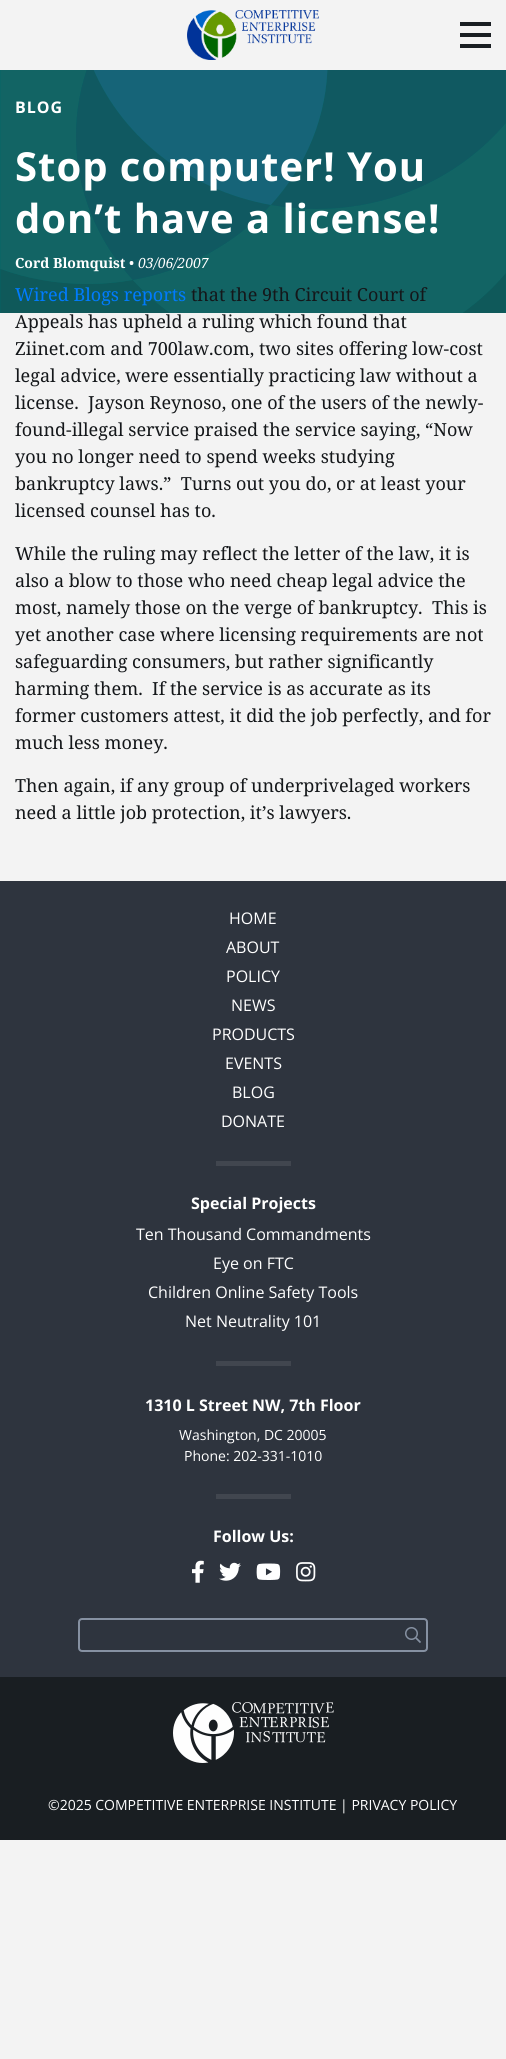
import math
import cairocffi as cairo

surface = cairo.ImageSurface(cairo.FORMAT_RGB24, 506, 2059)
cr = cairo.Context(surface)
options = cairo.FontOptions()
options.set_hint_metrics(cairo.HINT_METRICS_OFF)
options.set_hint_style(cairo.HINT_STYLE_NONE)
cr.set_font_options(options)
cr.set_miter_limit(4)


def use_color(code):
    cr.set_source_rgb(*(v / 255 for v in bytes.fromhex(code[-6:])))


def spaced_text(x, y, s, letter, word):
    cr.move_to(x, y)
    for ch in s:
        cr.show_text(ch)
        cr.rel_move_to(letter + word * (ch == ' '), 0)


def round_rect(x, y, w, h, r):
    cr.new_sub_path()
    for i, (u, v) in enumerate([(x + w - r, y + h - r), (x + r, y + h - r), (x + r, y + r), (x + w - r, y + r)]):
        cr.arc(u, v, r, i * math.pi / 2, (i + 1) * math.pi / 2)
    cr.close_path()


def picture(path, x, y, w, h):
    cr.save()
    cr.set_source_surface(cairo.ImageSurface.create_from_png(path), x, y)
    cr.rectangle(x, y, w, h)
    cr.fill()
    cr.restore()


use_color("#f3f3f3")
cr.paint()
picture("img1.png", 187, 10, 132, 50)
use_color("#191e22")
cr.rectangle(460, 22, 31, 4)
cr.fill()
cr.rectangle(460, 33, 31, 4)
cr.fill()
cr.rectangle(460, 44, 31, 4)
cr.fill()
use_color("#006666")
cr.rectangle(0, 70, 506, 243)
cr.fill()
picture("img2.png", 0, 70, 506, 243)
cr.select_font_face("Open Sans", cairo.FONT_SLANT_NORMAL, cairo.FONT_WEIGHT_BOLD)
cr.set_font_size(16)
use_color("#ffffff")
spaced_text(15, 113, "BLOG", 1, 0)
cr.select_font_face("Noto Serif", cairo.FONT_SLANT_NORMAL, cairo.FONT_WEIGHT_BOLD)
cr.set_font_size(14)
cr.move_to(15, 268)
cr.show_text("Cord Blomquist")
cr.select_font_face("Noto Serif")
cr.move_to(129, 268)
cr.show_text("•")
cr.select_font_face("Noto Serif", cairo.FONT_SLANT_ITALIC)
cr.move_to(138, 268)
cr.show_text("03/06/2007")
cr.select_font_face("Open Sans", cairo.FONT_SLANT_NORMAL, cairo.FONT_WEIGHT_BOLD)
cr.set_font_size(40)
spaced_text(15, 181, "Stop computer! You", 1, 0)
spaced_text(15, 233, "don’t have a license!", 1, 0)
cr.select_font_face("Noto Serif")
cr.set_font_size(18)
use_color("#007bff")
cr.move_to(15, 301)
cr.show_text("Wired Blogs reports")
use_color("#14171a")
cr.move_to(191, 301)
cr.show_text("that the 9th Circuit Court of")
cr.move_to(15, 328)
cr.show_text("Appeals has upheld a ruling which found that")
cr.move_to(15, 355)
cr.show_text("Ziinet.com and 700law.com, two sites offering low-cost")
cr.move_to(15, 382)
cr.show_text("legal advice, were essentially practicing law without a")
cr.move_to(15, 409)
cr.show_text("license.  Jayson Reynoso, one of the users of the newly-")
cr.move_to(15, 436)
cr.show_text("found-illegal service praised the service saying, “Now")
cr.move_to(15, 463)
cr.show_text("you no longer need to spend weeks studying")
cr.move_to(15, 490)
cr.show_text("bankruptcy laws.”  Turns out you do, or at least your")
cr.move_to(15, 517)
cr.show_text("licensed counsel has to.")
cr.move_to(15, 560)
cr.show_text("While the ruling may reflect the letter of the law, it is")
cr.move_to(15, 587)
cr.show_text("also a blow to those who need cheap legal advice the")
cr.move_to(15, 614)
cr.show_text("most, namely those on the verge of bankruptcy.  This is")
cr.move_to(15, 641)
cr.show_text("yet another case where licensing requirements are not")
cr.move_to(15, 668)
cr.show_text("safeguarding consumers, but rather significantly")
cr.move_to(15, 695)
cr.show_text("harming them.  If the service is as accurate as its")
cr.move_to(15, 722)
cr.show_text("former customers attest, it did the job perfectly, and for")
cr.move_to(15, 749)
cr.show_text("much less money.")
cr.move_to(15, 792)
cr.show_text("Then again, if any group of underprivelaged workers")
cr.move_to(15, 819)
cr.show_text("need a little job protection, it’s lawyers.")
use_color("#2e343e")
cr.rectangle(0, 881, 506, 796)
cr.fill()
cr.select_font_face("Open Sans")
cr.set_font_size(16)
use_color("#ffffff")
cr.move_to(229, 924)
cr.show_text("HOME")
cr.move_to(226, 953)
cr.show_text("ABOUT")
cr.move_to(226, 982)
cr.show_text("POLICY")
cr.move_to(231, 1011)
cr.show_text("NEWS")
cr.move_to(212, 1040)
cr.show_text("PRODUCTS")
cr.move_to(225, 1069)
cr.show_text("EVENTS")
cr.move_to(232, 1098)
cr.show_text("BLOG")
cr.move_to(221, 1127)
cr.show_text("DONATE")
use_color("#41464f")
cr.rectangle(216, 1161, 75, 5)
cr.fill()
cr.select_font_face("Open Sans", cairo.FONT_SLANT_NORMAL, cairo.FONT_WEIGHT_BOLD)
use_color("#ffffff")
cr.move_to(191, 1209)
cr.show_text("Special Projects")
cr.select_font_face("Open Sans")
cr.move_to(136, 1240)
cr.show_text("Ten Thousand Commandments")
cr.move_to(213, 1269)
cr.show_text("Eye on FTC")
cr.move_to(148, 1298)
cr.show_text("Children Online Safety Tools")
cr.move_to(185, 1327)
cr.show_text("Net Neutrality 101")
use_color("#41464f")
cr.rectangle(216, 1361, 75, 5)
cr.fill()
cr.select_font_face("Open Sans", cairo.FONT_SLANT_NORMAL, cairo.FONT_WEIGHT_BOLD)
use_color("#ffffff")
cr.move_to(145, 1411)
cr.show_text("1310 L Street NW, 7th Floor")
cr.select_font_face("Open Sans")
cr.set_font_size(14)
cr.move_to(179, 1440)
cr.show_text("Washington, DC 20005")
cr.move_to(184, 1461)
cr.show_text("Phone: 202-331-1010")
use_color("#41464f")
cr.rectangle(216, 1494, 75, 5)
cr.fill()
cr.select_font_face("Open Sans", cairo.FONT_SLANT_NORMAL, cairo.FONT_WEIGHT_BOLD)
cr.set_font_size(16)
use_color("#ffffff")
cr.move_to(213, 1542)
cr.show_text("Follow Us:")
picture("img3.png", 192, 1560, 12, 23)
picture("img4.png", 219, 1562, 22, 19)
picture("img5.png", 256, 1563, 25, 17)
picture("img6.png", 296, 1562, 20, 20)
round_rect(79, 1619, 348, 32, 3)
use_color("#8691a2")
cr.stroke()
picture("img7.png", 405, 1627, 16, 16)
use_color("#191e22")
cr.rectangle(0, 1677, 506, 163)
cr.fill()
picture("img8.png", 173, 1702, 161, 61)
cr.select_font_face("Open Sans")
cr.set_font_size(14)
use_color("#ffffff")
cr.move_to(48, 1810)
cr.show_text("©2025 COMPETITIVE ENTERPRISE INSTITUTE | PRIVACY POLICY")
surface.write_to_png("result.png")
